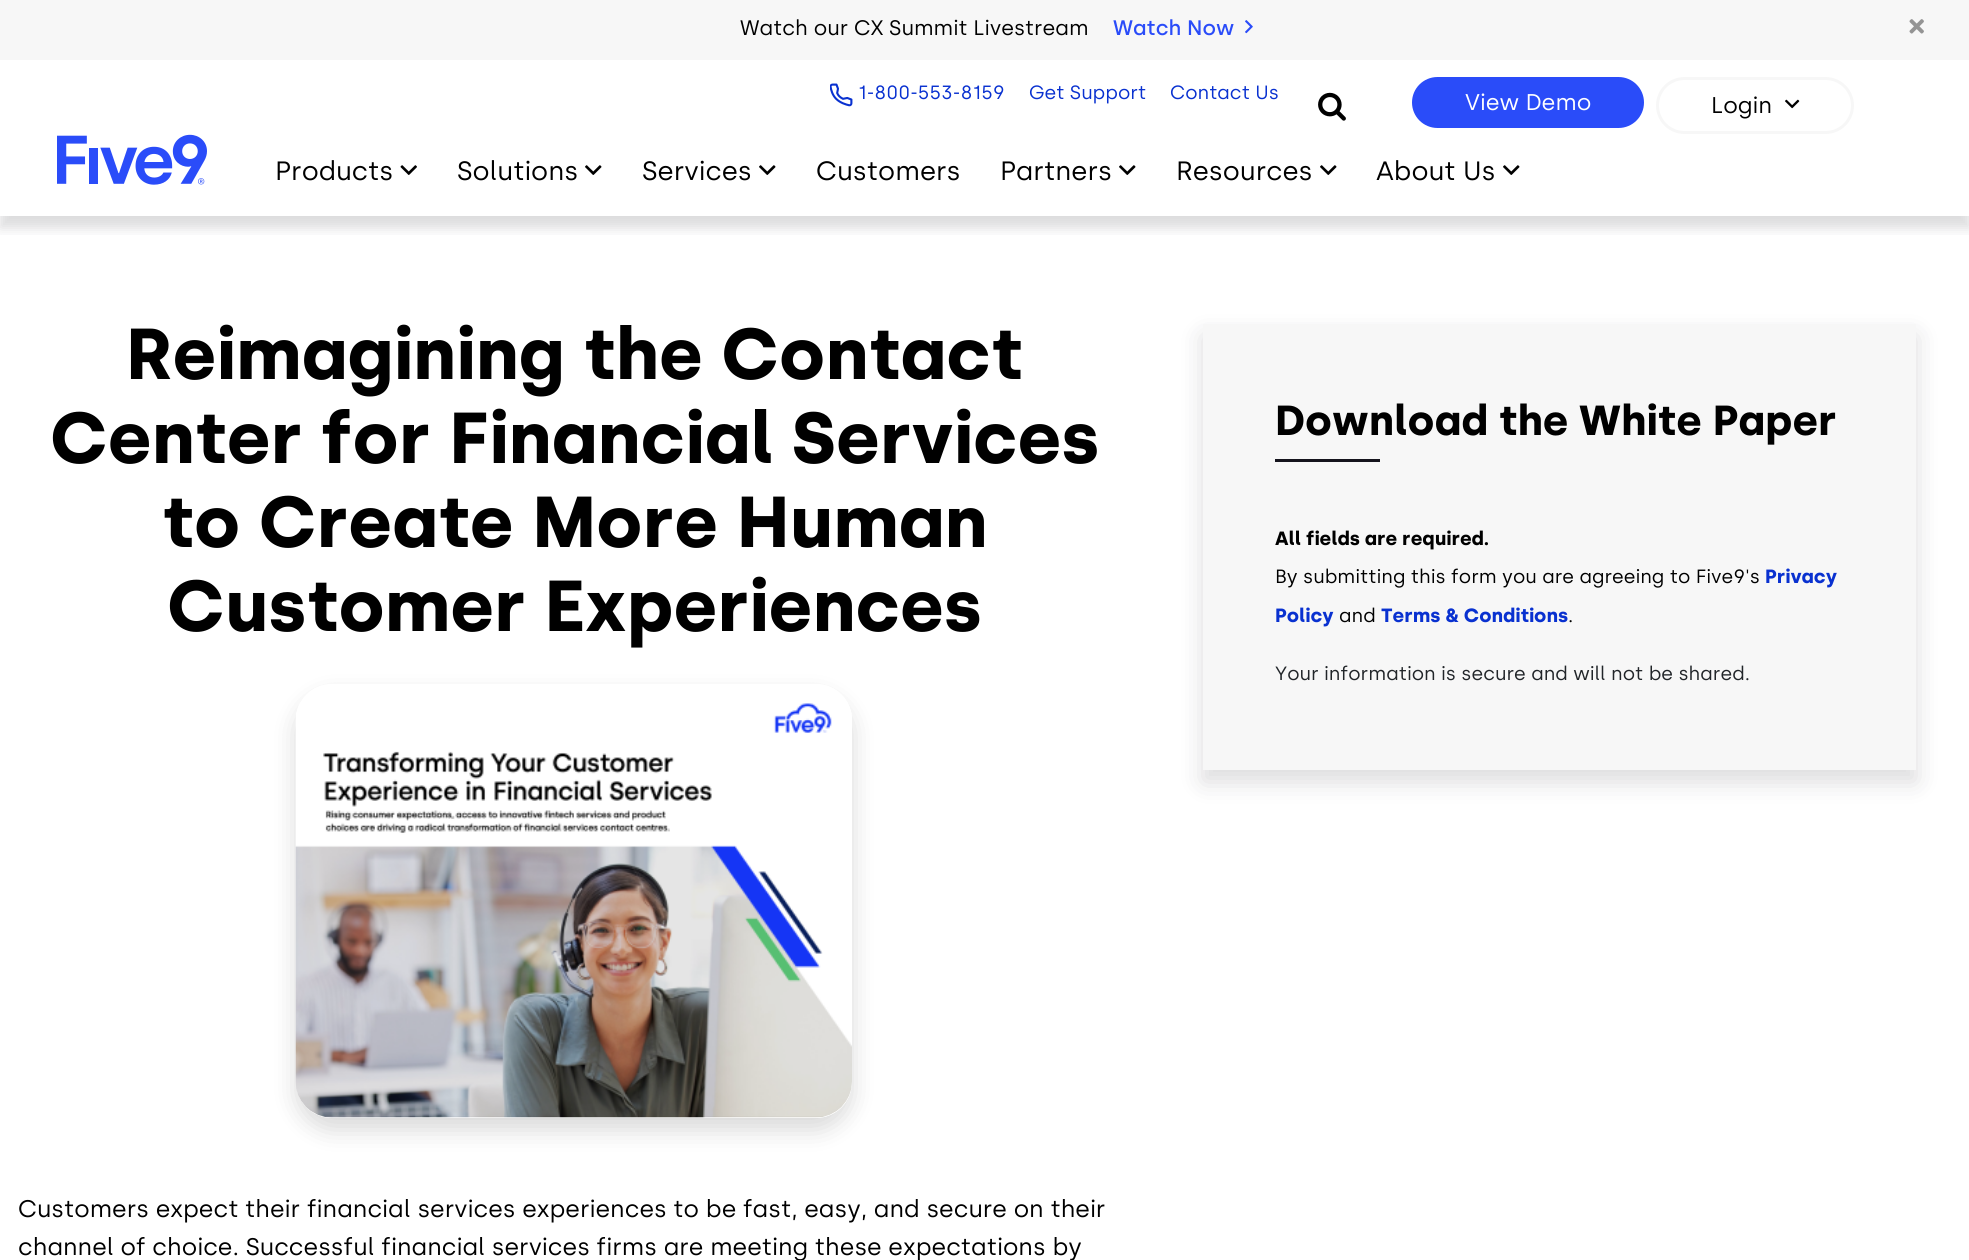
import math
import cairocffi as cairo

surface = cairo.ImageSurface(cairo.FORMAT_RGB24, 1969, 1260)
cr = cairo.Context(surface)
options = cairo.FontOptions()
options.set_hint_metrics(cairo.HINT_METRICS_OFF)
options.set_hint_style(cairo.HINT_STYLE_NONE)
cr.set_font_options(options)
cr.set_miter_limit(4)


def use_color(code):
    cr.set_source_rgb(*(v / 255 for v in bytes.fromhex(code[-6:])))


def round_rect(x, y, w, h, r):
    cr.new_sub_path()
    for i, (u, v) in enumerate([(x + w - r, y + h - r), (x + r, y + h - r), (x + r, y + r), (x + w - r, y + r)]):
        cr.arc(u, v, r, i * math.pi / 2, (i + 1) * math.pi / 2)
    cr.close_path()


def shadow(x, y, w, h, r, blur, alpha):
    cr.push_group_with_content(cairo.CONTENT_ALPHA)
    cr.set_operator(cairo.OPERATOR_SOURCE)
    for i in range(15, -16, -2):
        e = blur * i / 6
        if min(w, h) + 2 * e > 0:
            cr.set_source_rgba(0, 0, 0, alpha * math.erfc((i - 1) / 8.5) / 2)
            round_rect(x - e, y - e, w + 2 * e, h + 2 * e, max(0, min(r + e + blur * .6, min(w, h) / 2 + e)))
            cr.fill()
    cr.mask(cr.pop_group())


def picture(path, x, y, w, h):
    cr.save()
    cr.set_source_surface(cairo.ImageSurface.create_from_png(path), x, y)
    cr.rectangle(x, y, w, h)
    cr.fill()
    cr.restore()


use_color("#ffffff")
cr.paint()
cr.save()
cr.rectangle(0, 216, 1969, 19)
cr.clip()
use_color("#15141d")
shadow(0, 72, 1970, 156, 0, 6, 0.15)
cr.restore()
use_color("#f7f7f7")
cr.rectangle(0, 0, 1969, 60)
cr.fill()
cr.select_font_face("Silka")
cr.set_font_size(21)
use_color("#000000")
cr.move_to(740, 35)
cr.show_text("Watch our CX Summit Livestream")
cr.select_font_face("Silka Medium")
use_color("#2a4cf9")
cr.move_to(1113, 35)
cr.show_text("Watch Now")
picture("img1.png", 1245, 20, 8, 14)
picture("img2.png", 1909, 19, 15, 15)
picture("img3.png", 830, 83, 23, 24)
cr.select_font_face("Silka")
cr.set_font_size(19.2)
use_color("#0931d0")
cr.move_to(858, 99)
cr.show_text("1-800-553-8159")
cr.move_to(1029, 99)
cr.show_text("Get Support")
cr.move_to(1170, 99)
cr.show_text("Contact Us")
picture("img4.png", 1318, 92, 28, 29)
use_color("#2a4cf9")
round_rect(1412, 77, 232, 51, 25.5)
cr.fill()
cr.set_font_size(22.75)
use_color("#ffffff")
cr.move_to(1465, 110)
cr.show_text("View Demo")
round_rect(1657.5, 78.5, 195, 54, 27)
use_color("#f7f7f7")
cr.set_line_width(3)
cr.stroke()
use_color("#000000")
cr.move_to(1711, 113)
cr.show_text("Login")
picture("img5.png", 1785, 99, 15, 10)
picture("img6.png", 57, 134, 150, 51)
cr.set_font_size(26.5)
cr.move_to(275, 180)
cr.show_text("Products")
picture("img7.png", 400, 165, 17, 10)
cr.move_to(457, 180)
cr.show_text("Solutions")
picture("img8.png", 585, 165, 17, 10)
cr.move_to(642, 180)
cr.show_text("Services")
picture("img8.png", 759, 165, 17, 10)
cr.move_to(816, 180)
cr.show_text("Customers")
cr.move_to(1000, 180)
cr.show_text("Partners")
picture("img8.png", 1119, 165, 17, 10)
cr.move_to(1176, 180)
cr.show_text("Resources")
picture("img8.png", 1320, 165, 17, 10)
cr.move_to(1376, 180)
cr.show_text("About Us")
picture("img8.png", 1503, 165, 17, 10)
cr.select_font_face("Silka", cairo.FONT_SLANT_NORMAL, cairo.FONT_WEIGHT_BOLD)
cr.set_font_size(72)
cr.move_to(126, 379)
cr.show_text("Reimagining the Contact")
cr.move_to(50, 463)
cr.show_text("Center for Financial Services")
cr.move_to(162, 547)
cr.show_text("to Create More Human")
cr.move_to(167, 631)
cr.show_text("Customer Experiences")
cr.save()
cr.set_fill_rule(cairo.FILL_RULE_EVEN_ODD)
cr.new_path()
cr.move_to(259, 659)
cr.line_to(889, 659)
cr.line_to(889, 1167)
cr.line_to(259, 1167)
cr.close_path()
cr.move_to(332, 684)
cr.line_to(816, 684)
cr.curve_to(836, 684, 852, 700, 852, 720)
cr.line_to(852, 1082)
cr.curve_to(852, 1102, 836, 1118, 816, 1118)
cr.line_to(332, 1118)
cr.curve_to(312, 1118, 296, 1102, 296, 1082)
cr.line_to(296, 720)
cr.curve_to(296, 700, 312, 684, 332, 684)
cr.close_path()
cr.clip()
use_color("#000000")
shadow(296, 696, 556, 434, 36, 12, 0.15)
cr.restore()
picture("img9.png", 295, 703, 557, 415)
cr.select_font_face("Silka")
cr.set_font_size(24)
cr.move_to(18, 1217)
cr.show_text("Customers expect their financial services experiences to be fast, easy, and secure on their")
cr.move_to(18, 1255)
cr.show_text("channel of choice. Successful financial services firms are meeting these expectations by")
use_color("#15141d")
shadow(1203, 336, 713, 446, 0, 12, 0.15)
use_color("#f7f7f7")
cr.rectangle(1203, 324, 713, 446)
cr.fill()
cr.select_font_face("Silka", cairo.FONT_SLANT_NORMAL, cairo.FONT_WEIGHT_BOLD)
cr.set_font_size(42)
use_color("#000000")
cr.move_to(1275, 435)
cr.show_text("Download the White Paper")
use_color("#15141d")
cr.rectangle(1275, 459, 105, 3)
cr.fill()
cr.set_font_size(19.2)
use_color("#000000")
cr.move_to(1275, 545)
cr.show_text("All fields are required.")
cr.select_font_face("Silka")
cr.move_to(1275, 583)
cr.show_text("By submitting this form you are agreeing to Five9's")
cr.select_font_face("Silka", cairo.FONT_SLANT_NORMAL, cairo.FONT_WEIGHT_BOLD)
use_color("#0931d0")
cr.move_to(1765, 583)
cr.show_text("Privacy")
cr.move_to(1275, 622)
cr.show_text("Policy")
cr.select_font_face("Silka")
use_color("#000000")
cr.move_to(1339, 622)
cr.show_text("and")
cr.select_font_face("Silka", cairo.FONT_SLANT_NORMAL, cairo.FONT_WEIGHT_BOLD)
use_color("#0931d0")
cr.move_to(1381, 622)
cr.show_text("Terms & Conditions")
cr.select_font_face("Silka")
use_color("#000000")
cr.move_to(1568, 622)
cr.show_text(".")
use_color("#212529")
cr.move_to(1275, 680)
cr.show_text("Your information is secure and will not be shared.")
surface.write_to_png("result.png")
